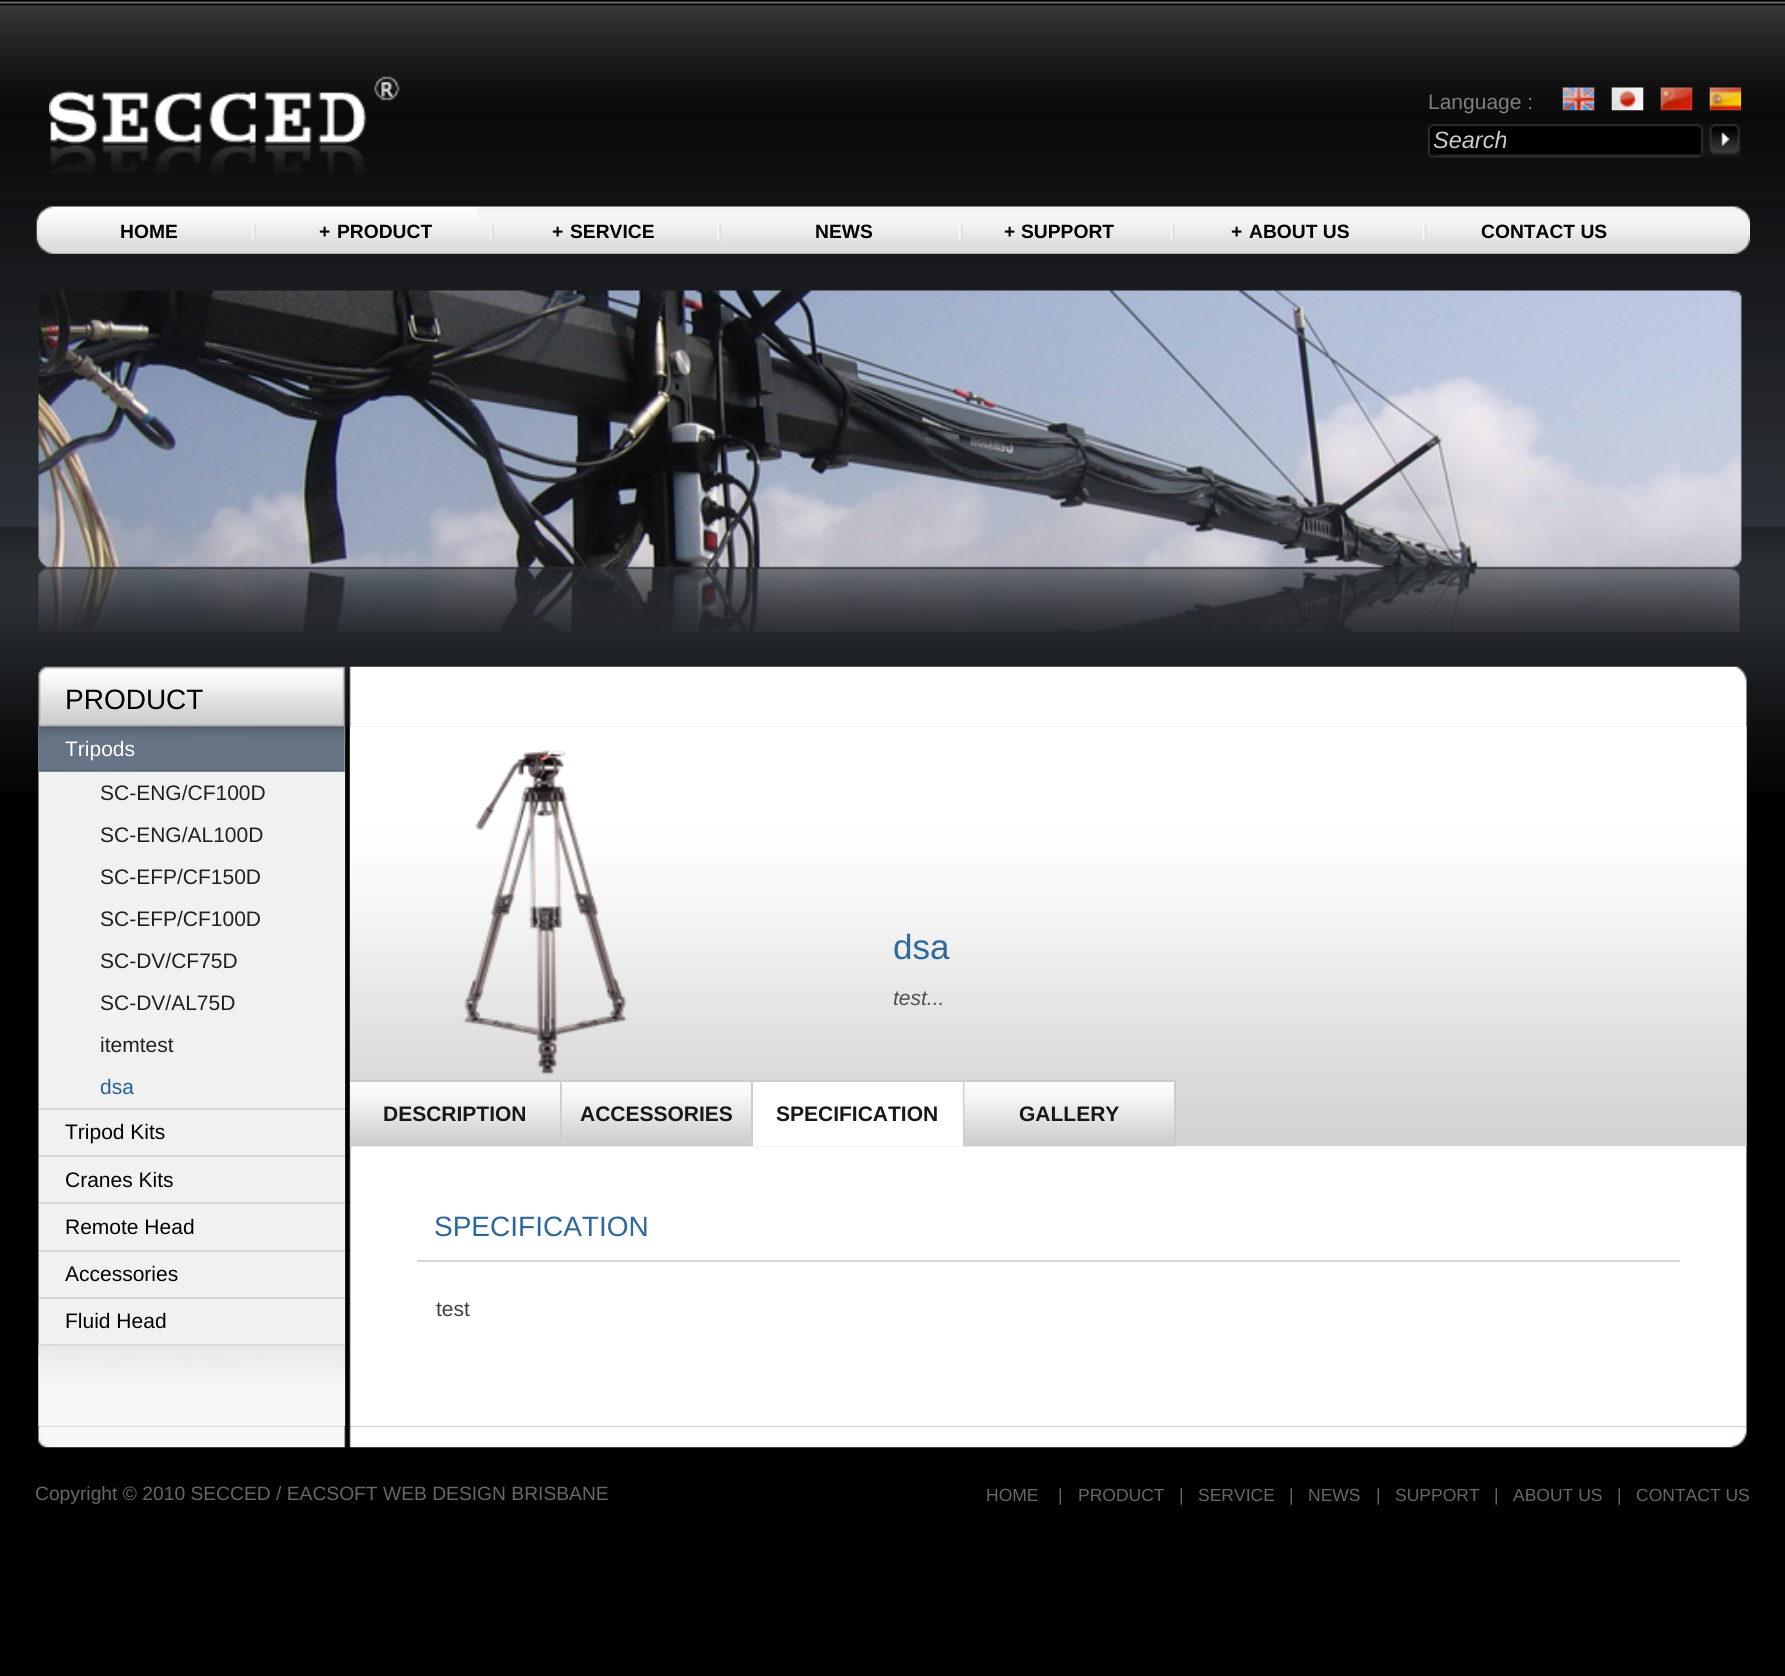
import math
import cairocffi as cairo

surface = cairo.ImageSurface(cairo.FORMAT_RGB24, 1785, 1676)
cr = cairo.Context(surface)
options = cairo.FontOptions()
options.set_hint_metrics(cairo.HINT_METRICS_OFF)
options.set_hint_style(cairo.HINT_STYLE_NONE)
cr.set_font_options(options)
cr.set_miter_limit(4)


def use_color(code):
    cr.set_source_rgb(*(v / 255 for v in bytes.fromhex(code[-6:])))


def picture(path, x, y, w, h):
    cr.save()
    cr.set_source_surface(cairo.ImageSurface.create_from_png(path), x, y)
    cr.rectangle(x, y, w, h)
    cr.fill()
    cr.restore()


use_color("#000000")
cr.paint()
picture("img1.png", 0, 1, 1785, 791)
picture("img2.png", 49, 76, 351, 98)
cr.select_font_face("Liberation Sans")
cr.set_font_size(21)
use_color("#7e7e7e")
cr.move_to(1428, 109)
cr.show_text("Language :")
picture("img3.png", 1562, 87, 33, 24)
picture("img4.png", 1611, 87, 33, 24)
picture("img5.png", 1660, 87, 33, 24)
picture("img6.png", 1709, 87, 33, 24)
picture("img7.png", 1428, 124, 313, 34)
use_color("#000000")
cr.rectangle(1433, 128, 268, 26)
cr.fill()
cr.select_font_face("Liberation Sans", cairo.FONT_SLANT_ITALIC)
cr.set_font_size(23.5)
use_color("#cccccc")
cr.move_to(1433, 148)
cr.show_text("Search")
picture("img8.png", 1709, 124, 31, 31)
picture("img9.png", 36, 206, 1714, 48)
cr.select_font_face("Liberation Sans", cairo.FONT_SLANT_NORMAL, cairo.FONT_WEIGHT_BOLD)
cr.set_font_size(19.25)
use_color("#000000")
cr.move_to(120, 238)
cr.show_text("HOME")
cr.move_to(319, 238)
cr.show_text("+")
cr.move_to(337, 238)
cr.show_text("PRODUCT")
cr.move_to(552, 238)
cr.show_text("+")
cr.move_to(570, 238)
cr.show_text("SERVICE")
cr.move_to(815, 238)
cr.show_text("NEWS")
cr.move_to(1004, 238)
cr.show_text("+")
cr.move_to(1021, 238)
cr.show_text("SUPPORT")
cr.move_to(1231, 238)
cr.show_text("+")
cr.move_to(1249, 238)
cr.show_text("ABOUT US")
cr.move_to(1481, 238)
cr.show_text("CONTACT US")
picture("img10.png", 38, 290, 1704, 342)
picture("img11.png", 38, 666, 1709, 61)
cr.select_font_face("Liberation Sans")
cr.set_font_size(28)
cr.move_to(65, 709)
cr.show_text("PRODUCT")
picture("img12.png", 38, 726, 1709, 701)
use_color("#f1f1f1")
cr.rectangle(39, 726, 306, 700)
cr.fill()
picture("img13.png", 38, 726, 307, 46)
cr.set_font_size(21)
use_color("#ffffff")
cr.move_to(65, 756)
cr.show_text("Tripods")
use_color("#202020")
cr.move_to(100, 800)
cr.show_text("SC-ENG/CF100D")
cr.move_to(100, 842)
cr.show_text("SC-ENG/AL100D")
cr.move_to(100, 884)
cr.show_text("SC-EFP/CF150D")
cr.move_to(100, 926)
cr.show_text("SC-EFP/CF100D")
cr.move_to(100, 968)
cr.show_text("SC-DV/CF75D")
cr.move_to(100, 1010)
cr.show_text("SC-DV/AL75D")
cr.move_to(100, 1052)
cr.show_text("itemtest")
use_color("#276299")
cr.move_to(100, 1094)
cr.show_text("dsa")
use_color("#d7d7d7")
cr.rectangle(39, 1108, 306, 2)
cr.fill()
use_color("#000000")
cr.move_to(65, 1139)
cr.show_text("Tripod Kits")
use_color("#d7d7d7")
cr.rectangle(39, 1155, 306, 2)
cr.fill()
use_color("#000000")
cr.move_to(65, 1187)
cr.show_text("Cranes Kits")
use_color("#d7d7d7")
cr.rectangle(39, 1202, 306, 2)
cr.fill()
use_color("#000000")
cr.move_to(65, 1234)
cr.show_text("Remote Head")
use_color("#d7d7d7")
cr.rectangle(39, 1250, 306, 2)
cr.fill()
use_color("#000000")
cr.move_to(65, 1281)
cr.show_text("Accessories")
use_color("#d7d7d7")
cr.rectangle(39, 1297, 306, 2)
cr.fill()
use_color("#000000")
cr.move_to(65, 1328)
cr.show_text("Fluid Head")
picture("img14.png", 38, 1344, 307, 83)
picture("img15.png", 350, 726, 1397, 421)
picture("img16.png", 463, 750, 164, 325)
cr.set_font_size(35)
use_color("#2f689d")
cr.move_to(893, 959)
cr.show_text("dsa")
cr.select_font_face("Liberation Sans", cairo.FONT_SLANT_ITALIC)
cr.set_font_size(21)
use_color("#4f4f4f")
cr.move_to(893, 1005)
cr.show_text("test...")
picture("img17.png", 350, 1082, 212, 65)
use_color("#cccccc")
cr.rectangle(350, 1080, 212, 2)
cr.fill()
cr.rectangle(560, 1080, 2, 66)
cr.fill()
cr.select_font_face("Liberation Sans", cairo.FONT_SLANT_NORMAL, cairo.FONT_WEIGHT_BOLD)
use_color("#181818")
cr.move_to(383, 1121)
cr.show_text("DESCRIPTION")
picture("img18.png", 561, 1081, 192, 66)
use_color("#cccccc")
cr.rectangle(562, 1080, 402, 2)
cr.fill()
cr.rectangle(751, 1080, 2, 66)
cr.fill()
use_color("#181818")
cr.move_to(580, 1121)
cr.show_text("ACCESSORIES")
use_color("#ffffff")
cr.rectangle(753, 1082, 210, 64)
cr.fill()
use_color("#cccccc")
cr.rectangle(963, 1080, 2, 66)
cr.fill()
use_color("#181818")
cr.move_to(776, 1121)
cr.show_text("SPECIFICATION")
picture("img19.png", 964, 1082, 212, 65)
use_color("#cccccc")
cr.rectangle(964, 1080, 212, 2)
cr.fill()
cr.rectangle(1174, 1080, 2, 66)
cr.fill()
use_color("#181818")
cr.move_to(1019, 1121)
cr.show_text("GALLERY")
use_color("#d8d8d8")
cr.rectangle(417, 1260, 1263, 2)
cr.fill()
cr.select_font_face("Liberation Sans")
cr.set_font_size(28)
use_color("#2f689d")
cr.move_to(434, 1236)
cr.show_text("SPECIFICATION")
cr.set_font_size(21)
use_color("#404040")
cr.move_to(436, 1316)
cr.show_text("test")
picture("img20.png", 38, 1426, 1709, 22)
cr.set_font_size(19.25)
use_color("#676767")
cr.move_to(35, 1500)
cr.show_text("Copyright © 2010 SECCED / EACSOFT WEB DESIGN BRISBANE")
cr.set_font_size(17.5)
cr.move_to(986, 1501)
cr.show_text("HOME")
cr.move_to(1058, 1501)
cr.show_text("|")
cr.move_to(1078, 1501)
cr.show_text("PRODUCT")
cr.move_to(1179, 1501)
cr.show_text("|")
cr.move_to(1198, 1501)
cr.show_text("SERVICE")
cr.move_to(1289, 1501)
cr.show_text("|")
cr.move_to(1308, 1501)
cr.show_text("NEWS")
cr.move_to(1376, 1501)
cr.show_text("|")
cr.move_to(1395, 1501)
cr.show_text("SUPPORT")
cr.move_to(1494, 1501)
cr.show_text("|")
cr.move_to(1513, 1501)
cr.show_text("ABOUT US")
cr.move_to(1617, 1501)
cr.show_text("|")
cr.move_to(1636, 1501)
cr.show_text("CONTACT US")
surface.write_to_png("result.png")
